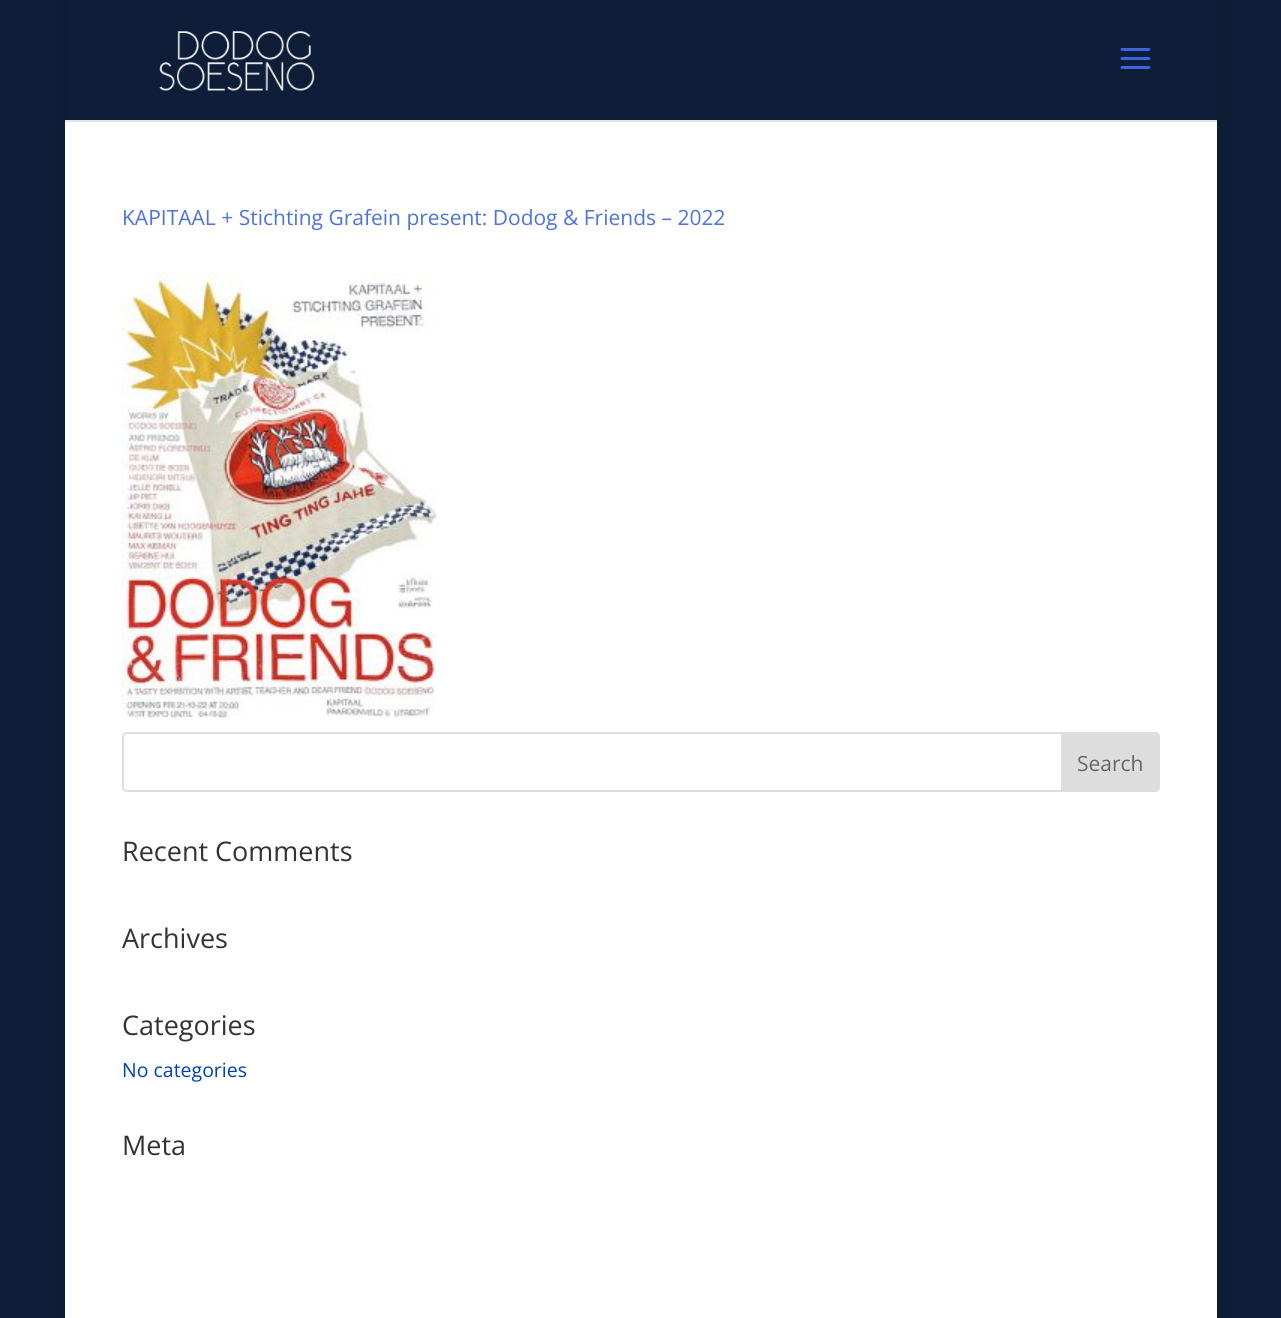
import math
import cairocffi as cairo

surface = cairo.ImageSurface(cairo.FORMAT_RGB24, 1281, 1318)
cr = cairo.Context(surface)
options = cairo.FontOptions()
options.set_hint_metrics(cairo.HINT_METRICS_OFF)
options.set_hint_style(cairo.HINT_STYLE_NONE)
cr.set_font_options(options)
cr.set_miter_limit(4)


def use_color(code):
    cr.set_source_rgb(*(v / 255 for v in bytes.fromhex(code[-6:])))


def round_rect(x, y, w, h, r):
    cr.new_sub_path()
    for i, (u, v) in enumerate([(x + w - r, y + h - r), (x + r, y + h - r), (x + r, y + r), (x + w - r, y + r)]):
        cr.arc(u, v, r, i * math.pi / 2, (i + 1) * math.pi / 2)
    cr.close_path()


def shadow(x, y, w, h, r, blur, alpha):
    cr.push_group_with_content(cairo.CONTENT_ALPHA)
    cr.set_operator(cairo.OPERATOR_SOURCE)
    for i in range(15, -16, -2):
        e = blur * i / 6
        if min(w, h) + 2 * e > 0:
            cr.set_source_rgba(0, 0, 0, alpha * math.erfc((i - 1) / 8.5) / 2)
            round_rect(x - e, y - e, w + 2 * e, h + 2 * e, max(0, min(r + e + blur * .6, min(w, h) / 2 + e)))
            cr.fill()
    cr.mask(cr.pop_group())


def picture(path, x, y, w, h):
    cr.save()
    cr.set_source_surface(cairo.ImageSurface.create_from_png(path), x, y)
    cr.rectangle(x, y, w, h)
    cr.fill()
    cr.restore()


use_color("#0e1e38")
cr.paint()
use_color("#000000")
shadow(65, 0, 1152, 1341, 0, 7.5, 0.2)
use_color("#ffffff")
cr.rectangle(65, 120, 1152, 1198)
cr.fill()
cr.set_source_rgba(0, 0, 0, 0.1)
cr.new_path()
cr.move_to(65, 120)
cr.line_to(65, 122)
cr.line_to(1217, 122)
cr.line_to(1217, 2)
cr.line_to(1216, 2)
cr.line_to(1216, 120)
cr.close_path()
cr.fill()
use_color("#0e1e38")
cr.rectangle(65, 0, 1152, 120)
cr.fill()
picture("img1.png", 159, 31, 156, 60)
picture("img2.png", 1120, 48, 31, 21)
cr.select_font_face("Open Sans")
cr.set_font_size(21)
use_color("#4d73de")
cr.move_to(122, 225)
cr.show_text("KAPITAAL + Stichting Grafein present: Dodog & Friends – 2022")
picture("img3.png", 121, 273, 317, 446)
round_rect(123, 733, 1036, 58, 4)
use_color("#dddddd")
cr.stroke()
cr.new_path()
cr.move_to(1062, 733)
cr.line_to(1155, 733)
cr.curve_to(1157, 733, 1159, 735, 1159, 737)
cr.line_to(1159, 787)
cr.curve_to(1159, 789, 1157, 791, 1155, 791)
cr.line_to(1062, 791)
cr.close_path()
cr.fill_preserve()
cr.stroke()
use_color("#666666")
cr.move_to(1077, 771)
cr.show_text("Search")
cr.set_font_size(27)
use_color("#333333")
cr.move_to(122, 861)
cr.show_text("Recent Comments")
cr.move_to(122, 948)
cr.show_text("Archives")
cr.move_to(122, 1035)
cr.show_text("Categories")
cr.set_font_size(19.5)
use_color("#0042b5")
cr.move_to(122, 1077)
cr.show_text("No categories")
cr.set_font_size(27)
use_color("#333333")
cr.move_to(122, 1155)
cr.show_text("Meta")
surface.write_to_png("result.png")
